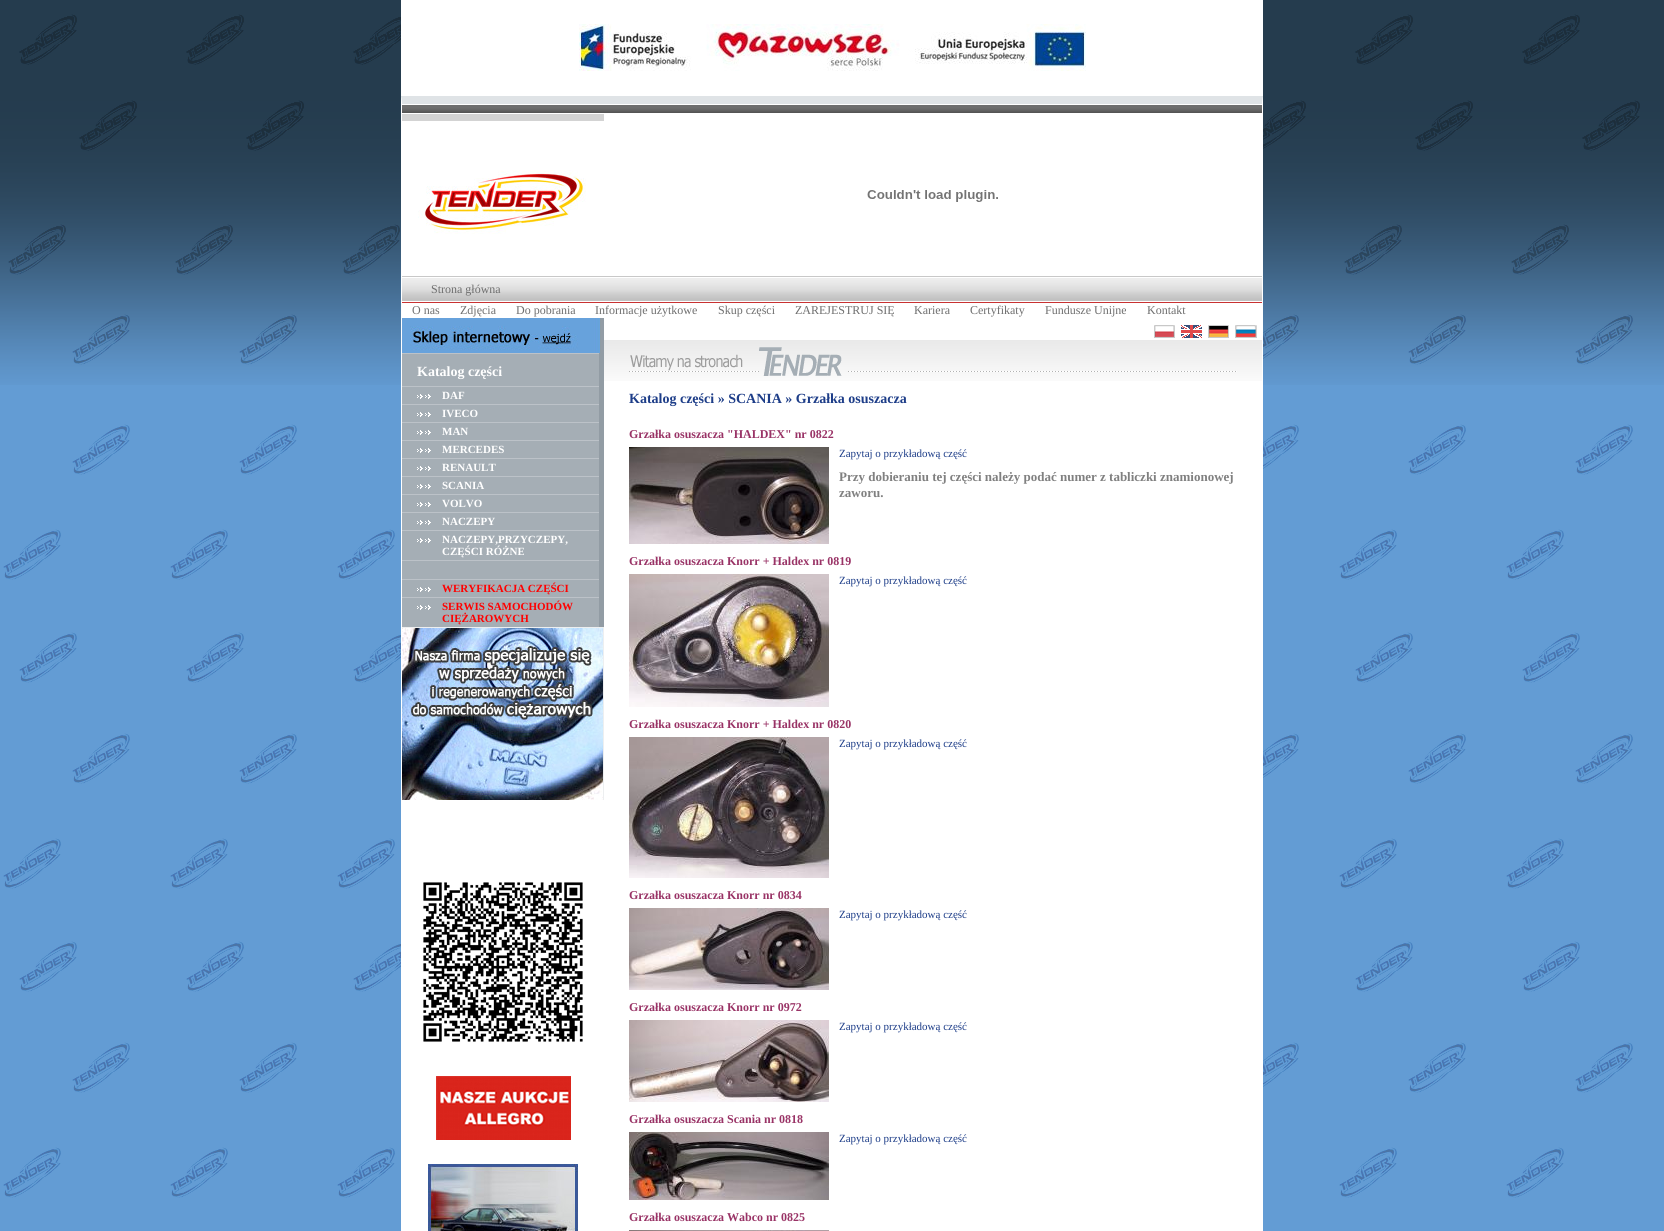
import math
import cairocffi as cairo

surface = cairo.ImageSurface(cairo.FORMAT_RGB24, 1664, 1231)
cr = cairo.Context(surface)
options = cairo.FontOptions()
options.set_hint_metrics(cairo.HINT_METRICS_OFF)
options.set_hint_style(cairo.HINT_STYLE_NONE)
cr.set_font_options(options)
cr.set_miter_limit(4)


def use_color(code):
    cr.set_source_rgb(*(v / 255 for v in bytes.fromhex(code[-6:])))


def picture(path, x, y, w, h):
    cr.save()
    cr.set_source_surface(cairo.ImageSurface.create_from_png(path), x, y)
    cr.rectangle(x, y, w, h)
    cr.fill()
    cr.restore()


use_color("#639cd4")
cr.paint()
picture("img1.png", 3, 385, 1630, 813)
picture("img2.png", 0, 0, 1664, 385)
use_color("#ffffff")
cr.rectangle(401, 0, 862, 1231)
cr.fill()
picture("img3.png", 579, 24, 507, 47)
picture("img4.png", 402, 105, 860, 8)
use_color("#dfe3e6")
cr.new_path()
cr.move_to(401, 96)
cr.line_to(1263, 96)
cr.line_to(1262, 104)
cr.line_to(402, 104)
cr.close_path()
cr.fill()
use_color("#ffffff")
cr.new_path()
cr.move_to(1263, 96)
cr.line_to(1263, 303)
cr.line_to(1262, 303)
cr.line_to(1262, 104)
cr.close_path()
cr.fill()
cr.new_path()
cr.move_to(401, 303)
cr.line_to(401, 96)
cr.line_to(402, 104)
cr.line_to(402, 303)
cr.close_path()
cr.fill()
picture("img5.png", 402, 114, 202, 120)
picture("img6.png", 867, 190, 131, 12)
picture("img7.png", 402, 276, 860, 25)
use_color("#c83232")
cr.rectangle(402, 302, 860, 1)
cr.fill()
cr.select_font_face("Liberation Serif")
cr.set_font_size(12)
use_color("#6e6e6e")
cr.move_to(431, 293)
cr.show_text("Strona główna")
cr.move_to(412, 314)
cr.show_text("O nas")
cr.move_to(460, 314)
cr.show_text("Zdjęcia")
cr.move_to(516, 314)
cr.show_text("Do pobrania")
cr.move_to(595, 314)
cr.show_text("Informacje użytkowe")
cr.move_to(718, 314)
cr.show_text("Skup części")
cr.move_to(795, 314)
cr.show_text("ZAREJESTRUJ SIĘ")
cr.move_to(914, 314)
cr.show_text("Kariera")
cr.move_to(970, 314)
cr.show_text("Certyfikaty")
cr.move_to(1045, 314)
cr.show_text("Fundusze Unijne")
cr.move_to(1147, 314)
cr.show_text("Kontakt")
picture("img8.png", 1154, 325, 21, 13)
picture("img9.png", 1181, 325, 21, 13)
picture("img10.png", 1208, 325, 21, 13)
picture("img11.png", 1235, 325, 22, 13)
picture("img12.png", 402, 318, 202, 35)
use_color("#a5aeb5")
cr.rectangle(402, 354, 197, 32)
cr.fill()
use_color("#929ca4")
cr.rectangle(599, 353, 5, 274)
cr.fill()
use_color("#bcc2c8")
cr.rectangle(402, 353, 197, 1)
cr.fill()
cr.select_font_face("Liberation Serif", cairo.FONT_SLANT_NORMAL, cairo.FONT_WEIGHT_BOLD)
cr.set_font_size(14)
use_color("#ffffff")
cr.move_to(417, 376)
cr.show_text("Katalog części")
use_color("#a5aeb5")
cr.rectangle(402, 387, 197, 240)
cr.fill()
use_color("#bcc2c8")
cr.rectangle(402, 386, 197, 1)
cr.fill()
picture("img13.png", 417, 394, 14, 5)
cr.set_font_size(11)
use_color("#ffffff")
cr.move_to(442, 399)
cr.show_text("DAF")
use_color("#bcc2c8")
cr.rectangle(402, 404, 197, 1)
cr.fill()
picture("img13.png", 417, 412, 14, 5)
use_color("#ffffff")
cr.move_to(442, 417)
cr.show_text("IVECO")
use_color("#bcc2c8")
cr.rectangle(402, 422, 197, 1)
cr.fill()
picture("img13.png", 417, 430, 14, 5)
use_color("#ffffff")
cr.move_to(442, 435)
cr.show_text("MAN")
use_color("#bcc2c8")
cr.rectangle(402, 440, 197, 1)
cr.fill()
picture("img13.png", 417, 448, 14, 5)
use_color("#ffffff")
cr.move_to(442, 453)
cr.show_text("MERCEDES")
use_color("#bcc2c8")
cr.rectangle(402, 458, 197, 1)
cr.fill()
picture("img13.png", 417, 466, 14, 5)
use_color("#ffffff")
cr.move_to(442, 471)
cr.show_text("RENAULT")
use_color("#bcc2c8")
cr.rectangle(402, 476, 197, 1)
cr.fill()
picture("img13.png", 417, 484, 14, 5)
use_color("#ffffff")
cr.move_to(442, 489)
cr.show_text("SCANIA")
use_color("#bcc2c8")
cr.rectangle(402, 494, 197, 1)
cr.fill()
picture("img13.png", 417, 502, 14, 5)
use_color("#ffffff")
cr.move_to(442, 507)
cr.show_text("VOLVO")
use_color("#bcc2c8")
cr.rectangle(402, 512, 197, 1)
cr.fill()
picture("img13.png", 417, 520, 14, 5)
use_color("#ffffff")
cr.move_to(442, 525)
cr.show_text("NACZEPY")
use_color("#bcc2c8")
cr.rectangle(402, 530, 197, 1)
cr.fill()
picture("img13.png", 417, 538, 14, 5)
use_color("#ffffff")
cr.move_to(442, 543)
cr.show_text("NACZEPY,PRZYCZEPY,")
cr.move_to(442, 555)
cr.show_text("CZĘŚCI RÓŻNE")
use_color("#bcc2c8")
cr.rectangle(402, 560, 197, 1)
cr.fill()
cr.rectangle(402, 579, 197, 1)
cr.fill()
picture("img13.png", 417, 587, 14, 5)
use_color("#ff0000")
cr.move_to(442, 592)
cr.show_text("WERYFIKACJA CZĘŚCI")
use_color("#bcc2c8")
cr.rectangle(402, 597, 197, 1)
cr.fill()
picture("img13.png", 417, 605, 14, 5)
use_color("#ff0000")
cr.move_to(442, 610)
cr.show_text("SERWIS SAMOCHODÓW")
cr.move_to(442, 622)
cr.show_text("CIĘŻAROWYCH")
use_color("#edeff0")
cr.rectangle(402, 627, 202, 1)
cr.fill()
cr.rectangle(603, 627, 1, 173)
cr.fill()
picture("img14.png", 402, 628, 201, 172)
picture("img15.png", 423, 882, 160, 160)
picture("img16.png", 436, 1076, 135, 64)
picture("img17.png", 428, 1164, 150, 67)
picture("img18.png", 604, 340, 658, 41)
picture("img19.png", 629, 371, 608, 1)
picture("img20.png", 630, 347, 218, 29)
cr.set_font_size(14)
use_color("#1d3d88")
cr.move_to(629, 403)
cr.show_text("Katalog części » SCANIA » Grzałka osuszacza")
cr.set_font_size(12)
use_color("#993366")
cr.move_to(629, 438)
cr.show_text("Grzałka osuszacza \"HALDEX\" nr 0822")
picture("img21.png", 629, 447, 200, 97)
cr.select_font_face("Liberation Serif")
cr.set_font_size(11)
use_color("#1d3d88")
cr.move_to(839, 457)
cr.show_text("Zapytaj o przykładową część")
cr.select_font_face("Liberation Serif", cairo.FONT_SLANT_NORMAL, cairo.FONT_WEIGHT_BOLD)
cr.set_font_size(13)
use_color("#808080")
cr.move_to(839, 481)
cr.show_text("Przy dobieraniu tej części należy podać numer z tabliczki znamionowej")
cr.move_to(839, 497)
cr.show_text("zaworu.")
cr.set_font_size(12)
use_color("#993366")
cr.move_to(629, 565)
cr.show_text("Grzałka osuszacza Knorr + Haldex nr 0819")
picture("img22.png", 629, 574, 200, 133)
cr.select_font_face("Liberation Serif")
cr.set_font_size(11)
use_color("#1d3d88")
cr.move_to(839, 584)
cr.show_text("Zapytaj o przykładową część")
cr.select_font_face("Liberation Serif", cairo.FONT_SLANT_NORMAL, cairo.FONT_WEIGHT_BOLD)
cr.set_font_size(12)
use_color("#993366")
cr.move_to(629, 728)
cr.show_text("Grzałka osuszacza Knorr + Haldex nr 0820")
picture("img23.png", 629, 737, 200, 141)
cr.select_font_face("Liberation Serif")
cr.set_font_size(11)
use_color("#1d3d88")
cr.move_to(839, 747)
cr.show_text("Zapytaj o przykładową część")
cr.select_font_face("Liberation Serif", cairo.FONT_SLANT_NORMAL, cairo.FONT_WEIGHT_BOLD)
cr.set_font_size(12)
use_color("#993366")
cr.move_to(629, 899)
cr.show_text("Grzałka osuszacza Knorr nr 0834")
picture("img24.png", 629, 908, 200, 82)
cr.select_font_face("Liberation Serif")
cr.set_font_size(11)
use_color("#1d3d88")
cr.move_to(839, 918)
cr.show_text("Zapytaj o przykładową część")
cr.select_font_face("Liberation Serif", cairo.FONT_SLANT_NORMAL, cairo.FONT_WEIGHT_BOLD)
cr.set_font_size(12)
use_color("#993366")
cr.move_to(629, 1011)
cr.show_text("Grzałka osuszacza Knorr nr 0972")
picture("img25.png", 629, 1020, 200, 82)
cr.select_font_face("Liberation Serif")
cr.set_font_size(11)
use_color("#1d3d88")
cr.move_to(839, 1030)
cr.show_text("Zapytaj o przykładową część")
cr.select_font_face("Liberation Serif", cairo.FONT_SLANT_NORMAL, cairo.FONT_WEIGHT_BOLD)
cr.set_font_size(12)
use_color("#993366")
cr.move_to(629, 1123)
cr.show_text("Grzałka osuszacza Scania nr 0818")
picture("img26.png", 629, 1132, 200, 68)
cr.select_font_face("Liberation Serif")
cr.set_font_size(11)
use_color("#1d3d88")
cr.move_to(839, 1142)
cr.show_text("Zapytaj o przykładową część")
cr.select_font_face("Liberation Serif", cairo.FONT_SLANT_NORMAL, cairo.FONT_WEIGHT_BOLD)
cr.set_font_size(12)
use_color("#993366")
cr.move_to(629, 1221)
cr.show_text("Grzałka osuszacza Wabco nr 0825")
picture("img27.png", 629, 1230, 200, 1)
surface.write_to_png("result.png")
